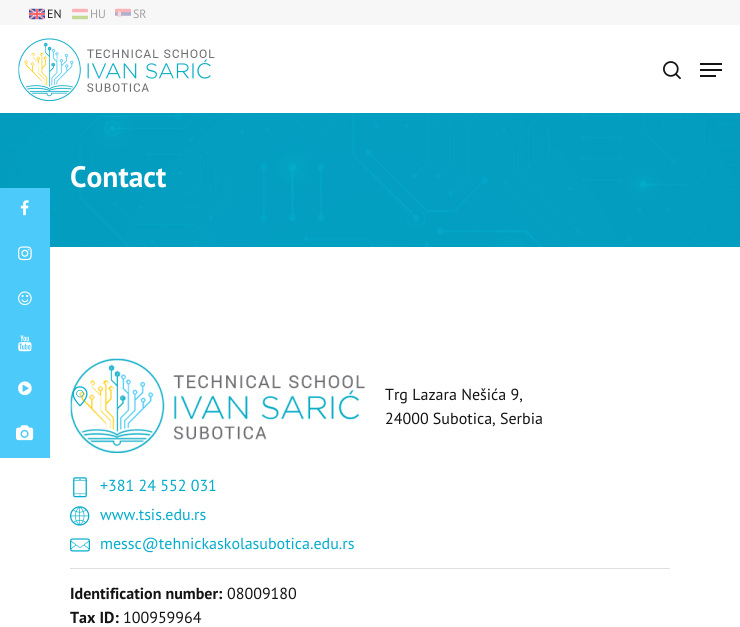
import math
import cairocffi as cairo

surface = cairo.ImageSurface(cairo.FORMAT_RGB24, 740, 627)
cr = cairo.Context(surface)
options = cairo.FontOptions()
options.set_hint_metrics(cairo.HINT_METRICS_OFF)
options.set_hint_style(cairo.HINT_STYLE_NONE)
cr.set_font_options(options)
cr.set_miter_limit(4)


def use_color(code):
    cr.set_source_rgb(*(v / 255 for v in bytes.fromhex(code[-6:])))


def picture(path, x, y, w, h):
    cr.save()
    cr.set_source_surface(cairo.ImageSurface.create_from_png(path), x, y)
    cr.rectangle(x, y, w, h)
    cr.fill()
    cr.restore()


use_color("#ffffff")
cr.paint()
picture("img12.png", 0, 113, 740, 134)
use_color("#4ccafa")
cr.rectangle(0, 188, 50, 270)
cr.fill()
picture("img1.png", 20, 200, 9, 16)
picture("img2.png", 18, 246, 14, 15)
picture("img3.png", 18, 291, 14, 15)
picture("img4.png", 18, 335, 14, 17)
picture("img5.png", 18, 381, 14, 15)
picture("img6.png", 16, 425, 18, 16)
use_color("#f7f7f7")
cr.rectangle(0, 0, 740, 25)
cr.fill()
picture("img7.png", 29, 8, 16, 12)
cr.select_font_face("PT Sans")
cr.set_font_size(12)
use_color("#1d1d1d")
cr.move_to(47, 18)
cr.show_text("EN")
picture("img8.png", 72, 8, 16, 12)
use_color("#a0a0a0")
cr.move_to(90, 18)
cr.show_text("HU")
picture("img9.png", 115, 8, 16, 9)
cr.move_to(133, 18)
cr.show_text("SR")
picture("img10.png", 18, 38, 197, 63)
picture("img11.png", 663, 61, 18, 19)
use_color("#141414")
cr.rectangle(700, 63, 22, 2)
cr.fill()
cr.rectangle(700, 75, 16, 2)
cr.fill()
cr.rectangle(700, 69, 22, 2)
cr.fill()
cr.select_font_face("PT Sans", cairo.FONT_SLANT_NORMAL, cairo.FONT_WEIGHT_BOLD)
cr.set_font_size(29.5)
use_color("#ffffff")
cr.move_to(70, 187)
cr.show_text("Contact")
picture("img13.png", 70, 358, 295, 95)
picture("img14.png", 72, 386, 16, 21)
cr.select_font_face("PT Sans")
cr.set_font_size(16)
use_color("#141414")
cr.move_to(385, 400)
cr.show_text("Trg Lazara Nešića 9,")
cr.move_to(385, 424)
cr.show_text("24000 Subotica, Serbia")
picture("img15.png", 73, 477, 14, 21)
use_color("#03accd")
cr.move_to(100, 491)
cr.show_text("+381 24 552 031")
picture("img16.png", 70, 506, 20, 20)
cr.move_to(100, 520)
cr.show_text("www.tsis.edu.rs")
picture("img17.png", 70, 538, 20, 14)
cr.move_to(100, 549)
cr.show_text("messc@tehnickaskolasubotica.edu.rs")
use_color("#e0e0e0")
cr.rectangle(70, 568, 600, 1)
cr.fill()
cr.select_font_face("PT Sans", cairo.FONT_SLANT_NORMAL, cairo.FONT_WEIGHT_BOLD)
use_color("#141414")
cr.move_to(70, 599)
cr.show_text("Identification number:")
cr.select_font_face("PT Sans")
cr.move_to(227, 599)
cr.show_text("08009180")
cr.select_font_face("PT Sans", cairo.FONT_SLANT_NORMAL, cairo.FONT_WEIGHT_BOLD)
cr.move_to(70, 623)
cr.show_text("Tax ID:")
cr.select_font_face("PT Sans")
cr.move_to(123, 623)
cr.show_text("100959964")
surface.write_to_png("result.png")
